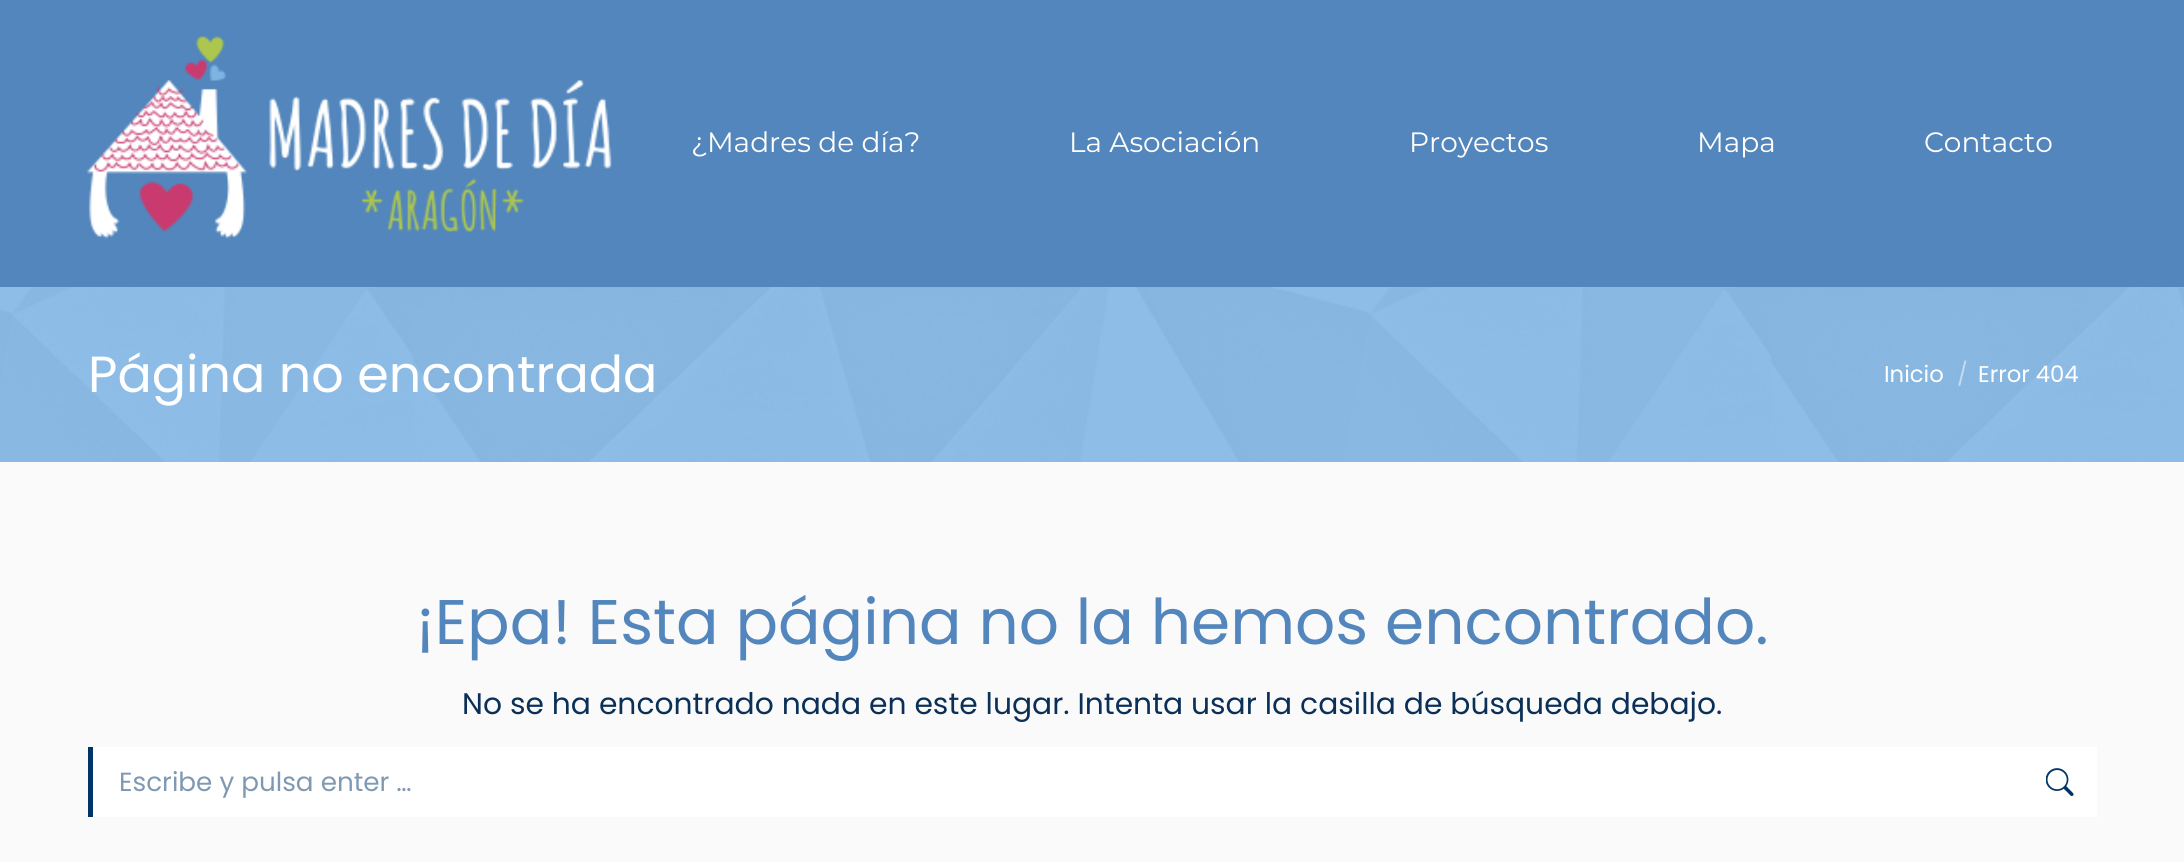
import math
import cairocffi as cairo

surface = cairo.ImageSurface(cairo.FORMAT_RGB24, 2184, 862)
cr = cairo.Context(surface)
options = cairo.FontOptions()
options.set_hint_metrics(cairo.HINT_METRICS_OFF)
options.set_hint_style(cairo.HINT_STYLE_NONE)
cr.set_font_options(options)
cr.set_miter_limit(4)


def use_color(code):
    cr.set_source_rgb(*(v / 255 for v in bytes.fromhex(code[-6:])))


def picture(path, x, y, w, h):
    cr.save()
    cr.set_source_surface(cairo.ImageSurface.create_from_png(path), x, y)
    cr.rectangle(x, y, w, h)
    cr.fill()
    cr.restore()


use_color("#fbfafa")
cr.paint()
use_color("#5286bc")
cr.rectangle(0, 0, 2184, 287)
cr.fill()
picture("img1.png", 87, 36, 525, 203)
cr.select_font_face("Montserrat")
cr.set_font_size(28)
use_color("#ffffff")
cr.move_to(691, 152)
cr.show_text("¿Madres de día?")
cr.move_to(1069, 152)
cr.show_text("La Asociación")
cr.move_to(1409, 152)
cr.show_text("Proyectos")
cr.move_to(1697, 152)
cr.show_text("Mapa")
cr.move_to(1924, 152)
cr.show_text("Contacto")
use_color("#7eb4e3")
cr.rectangle(0, 287, 2184, 175)
cr.fill()
picture("img2.png", 0, 287, 2184, 175)
cr.select_font_face("Poppins")
cr.set_font_size(50.75)
use_color("#ffffff")
cr.move_to(88, 392)
cr.show_text("Página no encontrada")
cr.set_font_size(22.75)
cr.move_to(1884, 382)
cr.show_text("Inicio")
use_color("#c3dbf0")
cr.move_to(1957, 382)
cr.show_text("/")
use_color("#ffffff")
cr.move_to(1978, 382)
cr.show_text("Error 404")
cr.set_font_size(63)
use_color("#5286bc")
cr.move_to(416, 644)
cr.show_text("¡Epa! Esta página no la hemos encontrado.")
cr.set_font_size(29.75)
use_color("#0b3057")
cr.move_to(462, 714)
cr.show_text("No se ha encontrado nada en este lugar. Intenta usar la casilla de búsqueda debajo.")
use_color("#ffffff")
cr.rectangle(93, 747, 2004, 70)
cr.fill()
use_color("#003366")
cr.rectangle(88, 747, 5, 70)
cr.fill()
cr.set_font_size(26.25)
use_color("#8099b3")
cr.move_to(119, 791)
cr.show_text("Escribe y pulsa enter …")
picture("img3.png", 2046, 768, 28, 28)
surface.write_to_png("result.png")
